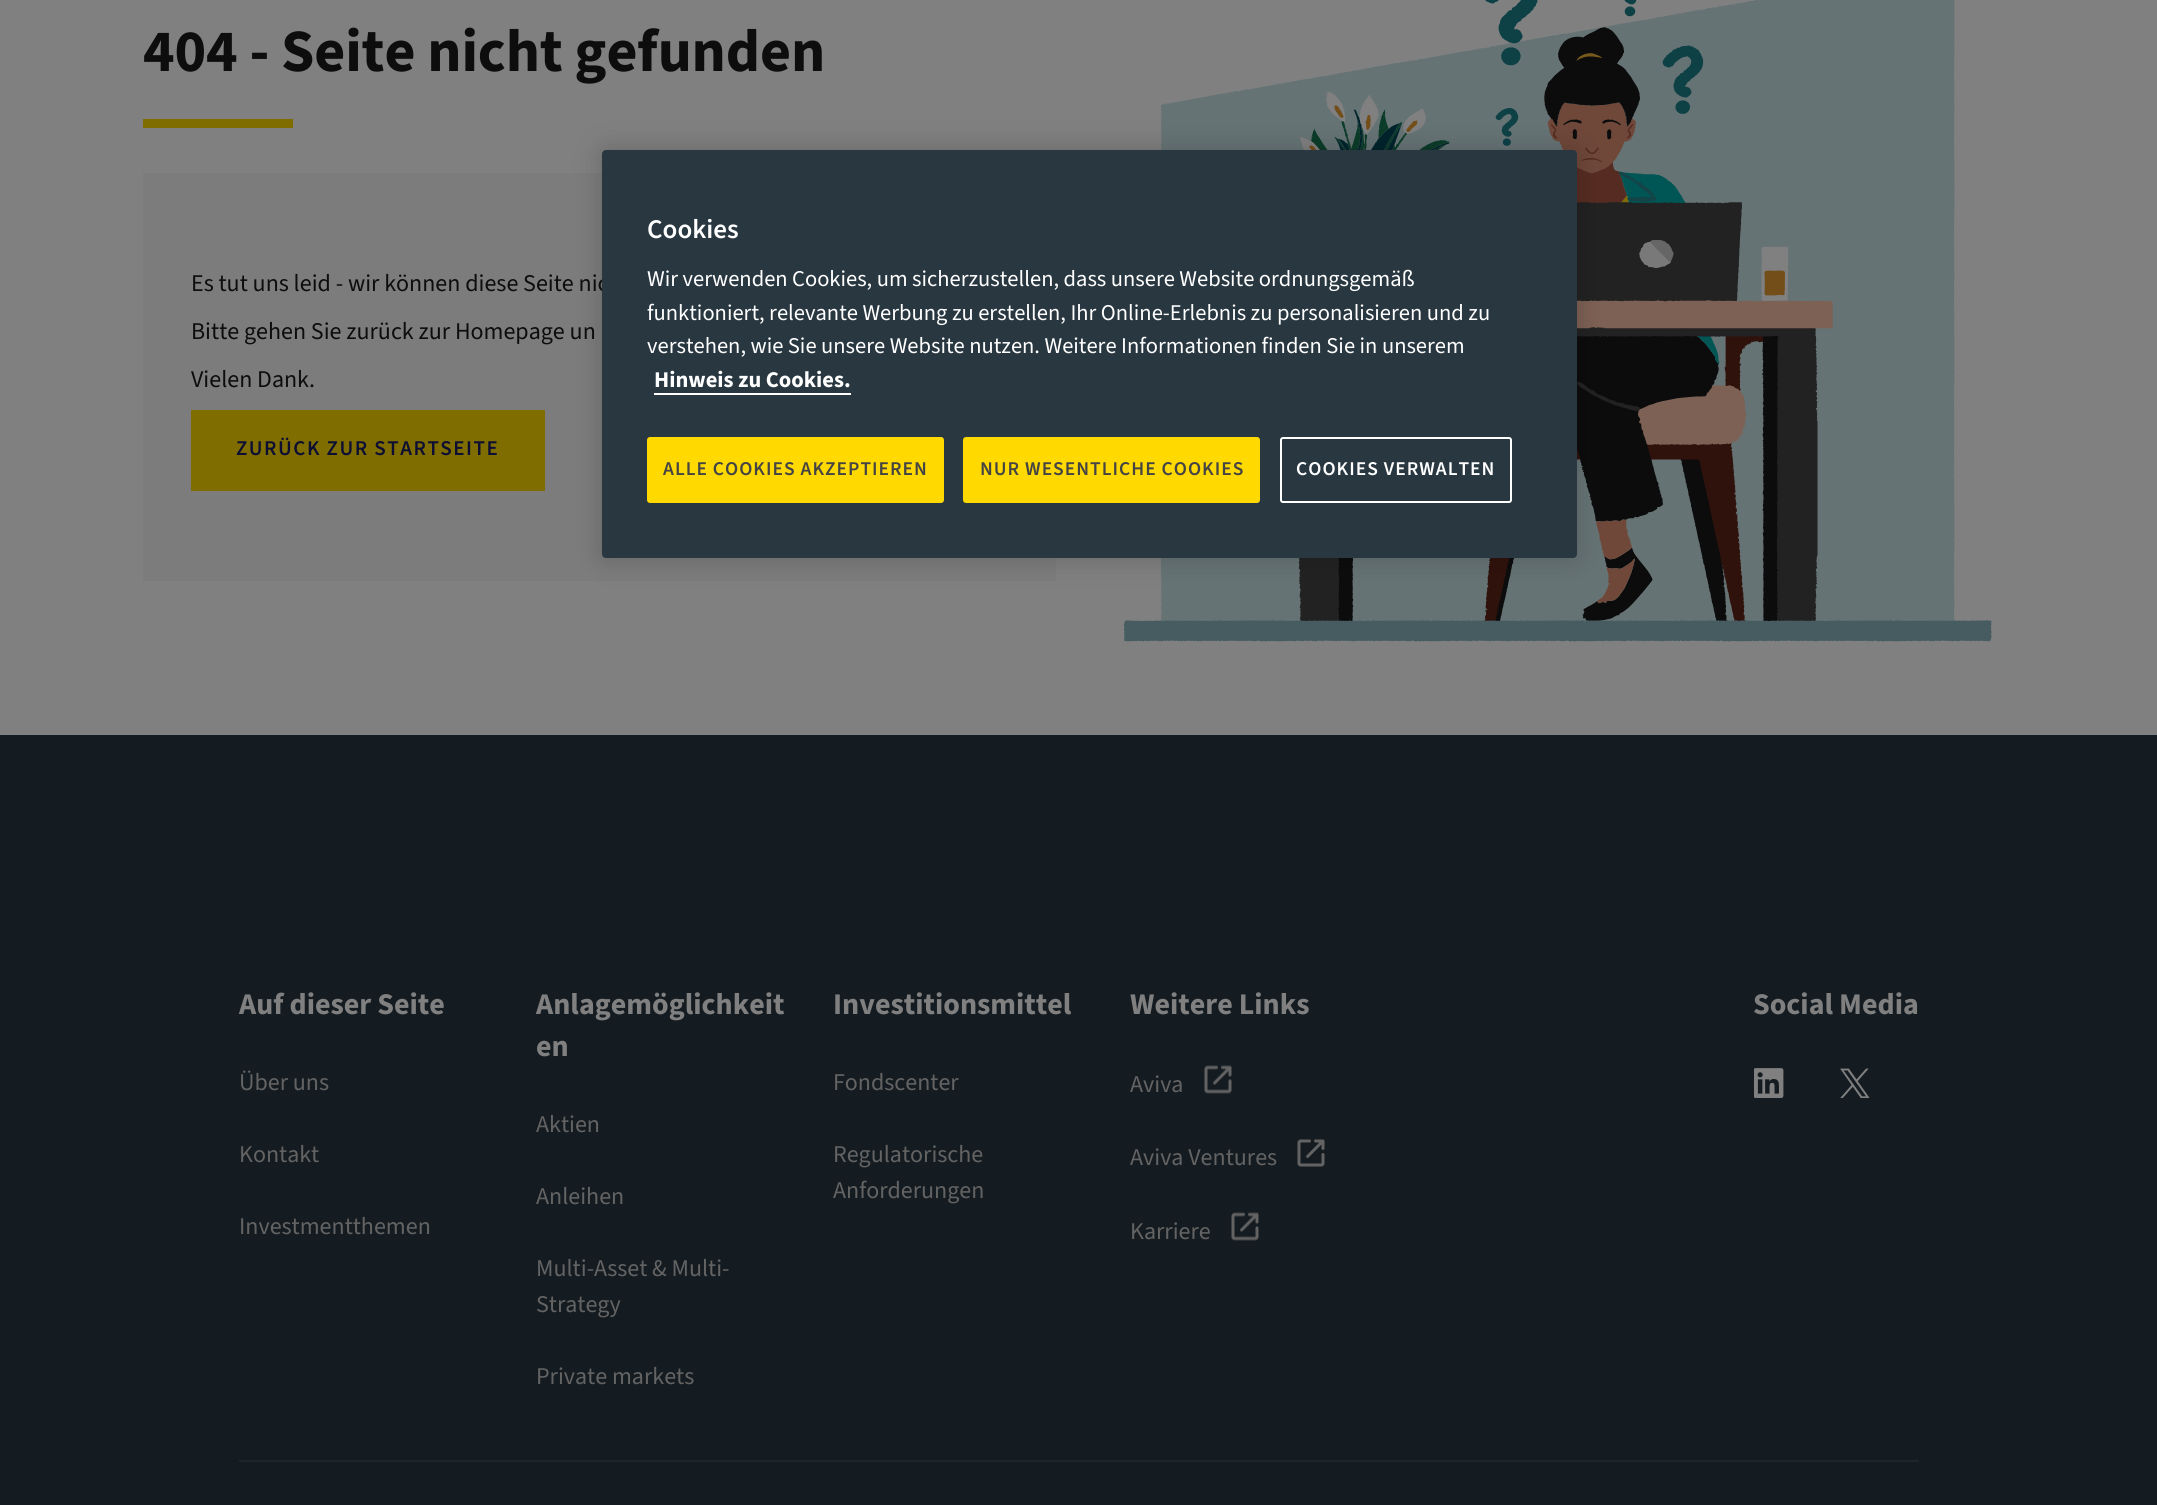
import math
import cairocffi as cairo

surface = cairo.ImageSurface(cairo.FORMAT_RGB24, 2157, 1505)
cr = cairo.Context(surface)
options = cairo.FontOptions()
options.set_hint_metrics(cairo.HINT_METRICS_OFF)
options.set_hint_style(cairo.HINT_STYLE_NONE)
cr.set_font_options(options)
cr.set_miter_limit(4)


def use_color(code):
    cr.set_source_rgb(*(v / 255 for v in bytes.fromhex(code[-6:])))


def spaced_text(x, y, s, letter, word):
    cr.move_to(x, y)
    for ch in s:
        cr.show_text(ch)
        cr.rel_move_to(letter + word * (ch == ' '), 0)


def round_rect(x, y, w, h, r):
    cr.new_sub_path()
    for i, (u, v) in enumerate([(x + w - r, y + h - r), (x + r, y + h - r), (x + r, y + r), (x + w - r, y + r)]):
        cr.arc(u, v, r, i * math.pi / 2, (i + 1) * math.pi / 2)
    cr.close_path()


def shadow(x, y, w, h, r, blur, alpha):
    cr.push_group_with_content(cairo.CONTENT_ALPHA)
    cr.set_operator(cairo.OPERATOR_SOURCE)
    for i in range(15, -16, -2):
        e = blur * i / 6
        if min(w, h) + 2 * e > 0:
            cr.set_source_rgba(0, 0, 0, alpha * math.erfc((i - 1) / 8.5) / 2)
            round_rect(x - e, y - e, w + 2 * e, h + 2 * e, max(0, min(r + e + blur * .6, min(w, h) / 2 + e)))
            cr.fill()
    cr.mask(cr.pop_group())


def picture(path, x, y, w, h):
    cr.save()
    cr.set_source_surface(cairo.ImageSurface.create_from_png(path), x, y)
    cr.rectangle(x, y, w, h)
    cr.fill()
    cr.restore()


use_color("#808080")
cr.paint()
cr.select_font_face("Source Sans 3", cairo.FONT_SLANT_NORMAL, cairo.FONT_WEIGHT_BOLD)
cr.set_font_size(60)
use_color("#0d0d0d")
spaced_text(143, 71, "404 - Seite nicht gefunden", -0.15, 0)
use_color("#806d00")
cr.rectangle(143, 119, 150, 9)
cr.fill()
picture("img1.png", 1123, 0, 869, 642)
use_color("#7c7c7c")
cr.rectangle(143, 173, 913, 408)
cr.fill()
cr.select_font_face("Source Sans 3")
cr.set_font_size(24)
use_color("#0d0d0d")
cr.move_to(191, 291)
cr.show_text("Es tut uns leid - wir können diese Seite nic")
cr.move_to(191, 339)
cr.show_text("Bitte gehen Sie zurück zur Homepage un")
cr.move_to(191, 387)
cr.show_text("Vielen Dank.")
use_color("#806d00")
cr.rectangle(191, 410, 354, 81)
cr.fill()
cr.select_font_face("Source Sans 3 SemiBold")
cr.set_font_size(21)
use_color("#0d0f32")
spaced_text(236, 455, "ZURÜCK ZUR STARTSEITE", 1.5, 0)
use_color("#151c21")
cr.rectangle(0, 735, 2157, 770)
cr.fill()
cr.select_font_face("Source Sans 3", cairo.FONT_SLANT_NORMAL, cairo.FONT_WEIGHT_BOLD)
cr.set_font_size(30)
use_color("#808080")
cr.move_to(239, 1014)
cr.show_text("Auf dieser Seite")
cr.select_font_face("Source Sans 3")
cr.set_font_size(24)
use_color("#636363")
cr.move_to(239, 1090)
cr.show_text("Über uns")
cr.move_to(239, 1162)
cr.show_text("Kontakt")
cr.move_to(239, 1234)
cr.show_text("Investmentthemen")
cr.select_font_face("Source Sans 3", cairo.FONT_SLANT_NORMAL, cairo.FONT_WEIGHT_BOLD)
cr.set_font_size(30)
use_color("#808080")
cr.move_to(536, 1014)
cr.show_text("Anlagemöglichkeit")
cr.move_to(536, 1056)
cr.show_text("en")
cr.select_font_face("Source Sans 3")
cr.set_font_size(24)
use_color("#636363")
cr.move_to(536, 1132)
cr.show_text("Aktien")
cr.move_to(536, 1204)
cr.show_text("Anleihen")
cr.move_to(536, 1276)
cr.show_text("Multi-Asset & Multi-")
cr.move_to(536, 1312)
cr.show_text("Strategy")
cr.move_to(536, 1384)
cr.show_text("Private markets")
cr.select_font_face("Source Sans 3", cairo.FONT_SLANT_NORMAL, cairo.FONT_WEIGHT_BOLD)
cr.set_font_size(30)
use_color("#808080")
cr.move_to(833, 1014)
cr.show_text("Investitionsmittel")
cr.select_font_face("Source Sans 3")
cr.set_font_size(24)
use_color("#636363")
cr.move_to(833, 1090)
cr.show_text("Fondscenter")
cr.move_to(833, 1162)
cr.show_text("Regulatorische")
cr.move_to(833, 1198)
cr.show_text("Anforderungen")
cr.select_font_face("Source Sans 3", cairo.FONT_SLANT_NORMAL, cairo.FONT_WEIGHT_BOLD)
cr.set_font_size(30)
use_color("#808080")
cr.move_to(1130, 1014)
cr.show_text("Weitere Links")
cr.select_font_face("Source Sans 3")
cr.set_font_size(24)
use_color("#636363")
cr.move_to(1130, 1092)
cr.show_text("Aviva")
picture("img2.png", 1204, 1065, 28, 29)
cr.move_to(1130, 1165)
cr.show_text("Aviva Ventures")
picture("img3.png", 1297, 1139, 28, 28)
cr.move_to(1130, 1239)
cr.show_text("Karriere")
picture("img2.png", 1231, 1212, 28, 29)
cr.select_font_face("Source Sans 3", cairo.FONT_SLANT_NORMAL, cairo.FONT_WEIGHT_BOLD)
cr.set_font_size(30)
use_color("#808080")
cr.move_to(1753, 1014)
cr.show_text("Social Media")
picture("img4.png", 1754, 1068, 30, 30)
picture("img5.png", 1840, 1068, 30, 30)
use_color("#1f262a")
cr.rectangle(239, 1460, 1680, 2)
cr.fill()
use_color("#000000")
shadow(602, 150, 975, 408, 4, 13.5, 0.2)
use_color("#293741")
round_rect(602, 150, 975, 408, 4)
cr.fill()
cr.select_font_face("Source Sans 3 SemiBold")
cr.set_font_size(27)
use_color("#ffffff")
cr.move_to(647, 238)
cr.show_text("Cookies")
cr.select_font_face("Source Sans 3")
cr.set_font_size(22.5)
cr.move_to(647, 286)
cr.show_text("Wir verwenden Cookies, um sicherzustellen, dass unsere Website ordnungsgemäß")
cr.move_to(647, 320)
cr.show_text("funktioniert, relevante Werbung zu erstellen, Ihr Online-Erlebnis zu personalisieren und zu")
cr.move_to(647, 353)
cr.show_text("verstehen, wie Sie unsere Website nutzen. Weitere Informationen finden Sie in unserem")
cr.select_font_face("Source Sans 3", cairo.FONT_SLANT_NORMAL, cairo.FONT_WEIGHT_BOLD)
cr.move_to(654, 387)
cr.show_text("Hinweis zu Cookies.")
cr.rectangle(654, 393, 197, 2)
cr.fill()
use_color("#ffd900")
round_rect(648, 438, 295, 64, 2)
cr.fill_preserve()
cr.stroke()
cr.select_font_face("Source Sans 3 SemiBold")
cr.set_font_size(19.5)
use_color("#444444")
spaced_text(663, 475, "ALLE COOKIES AKZEPTIEREN", 1, 0)
use_color("#ffd900")
round_rect(964, 438, 295, 64, 2)
cr.fill_preserve()
cr.stroke()
use_color("#444444")
spaced_text(980, 475, "NUR WESENTLICHE COOKIES", 1, 0)
round_rect(1281, 438, 230, 64, 2)
use_color("#ffffff")
cr.stroke()
spaced_text(1296, 475, "COOKIES VERWALTEN", 1, 0)
surface.write_to_png("result.png")
